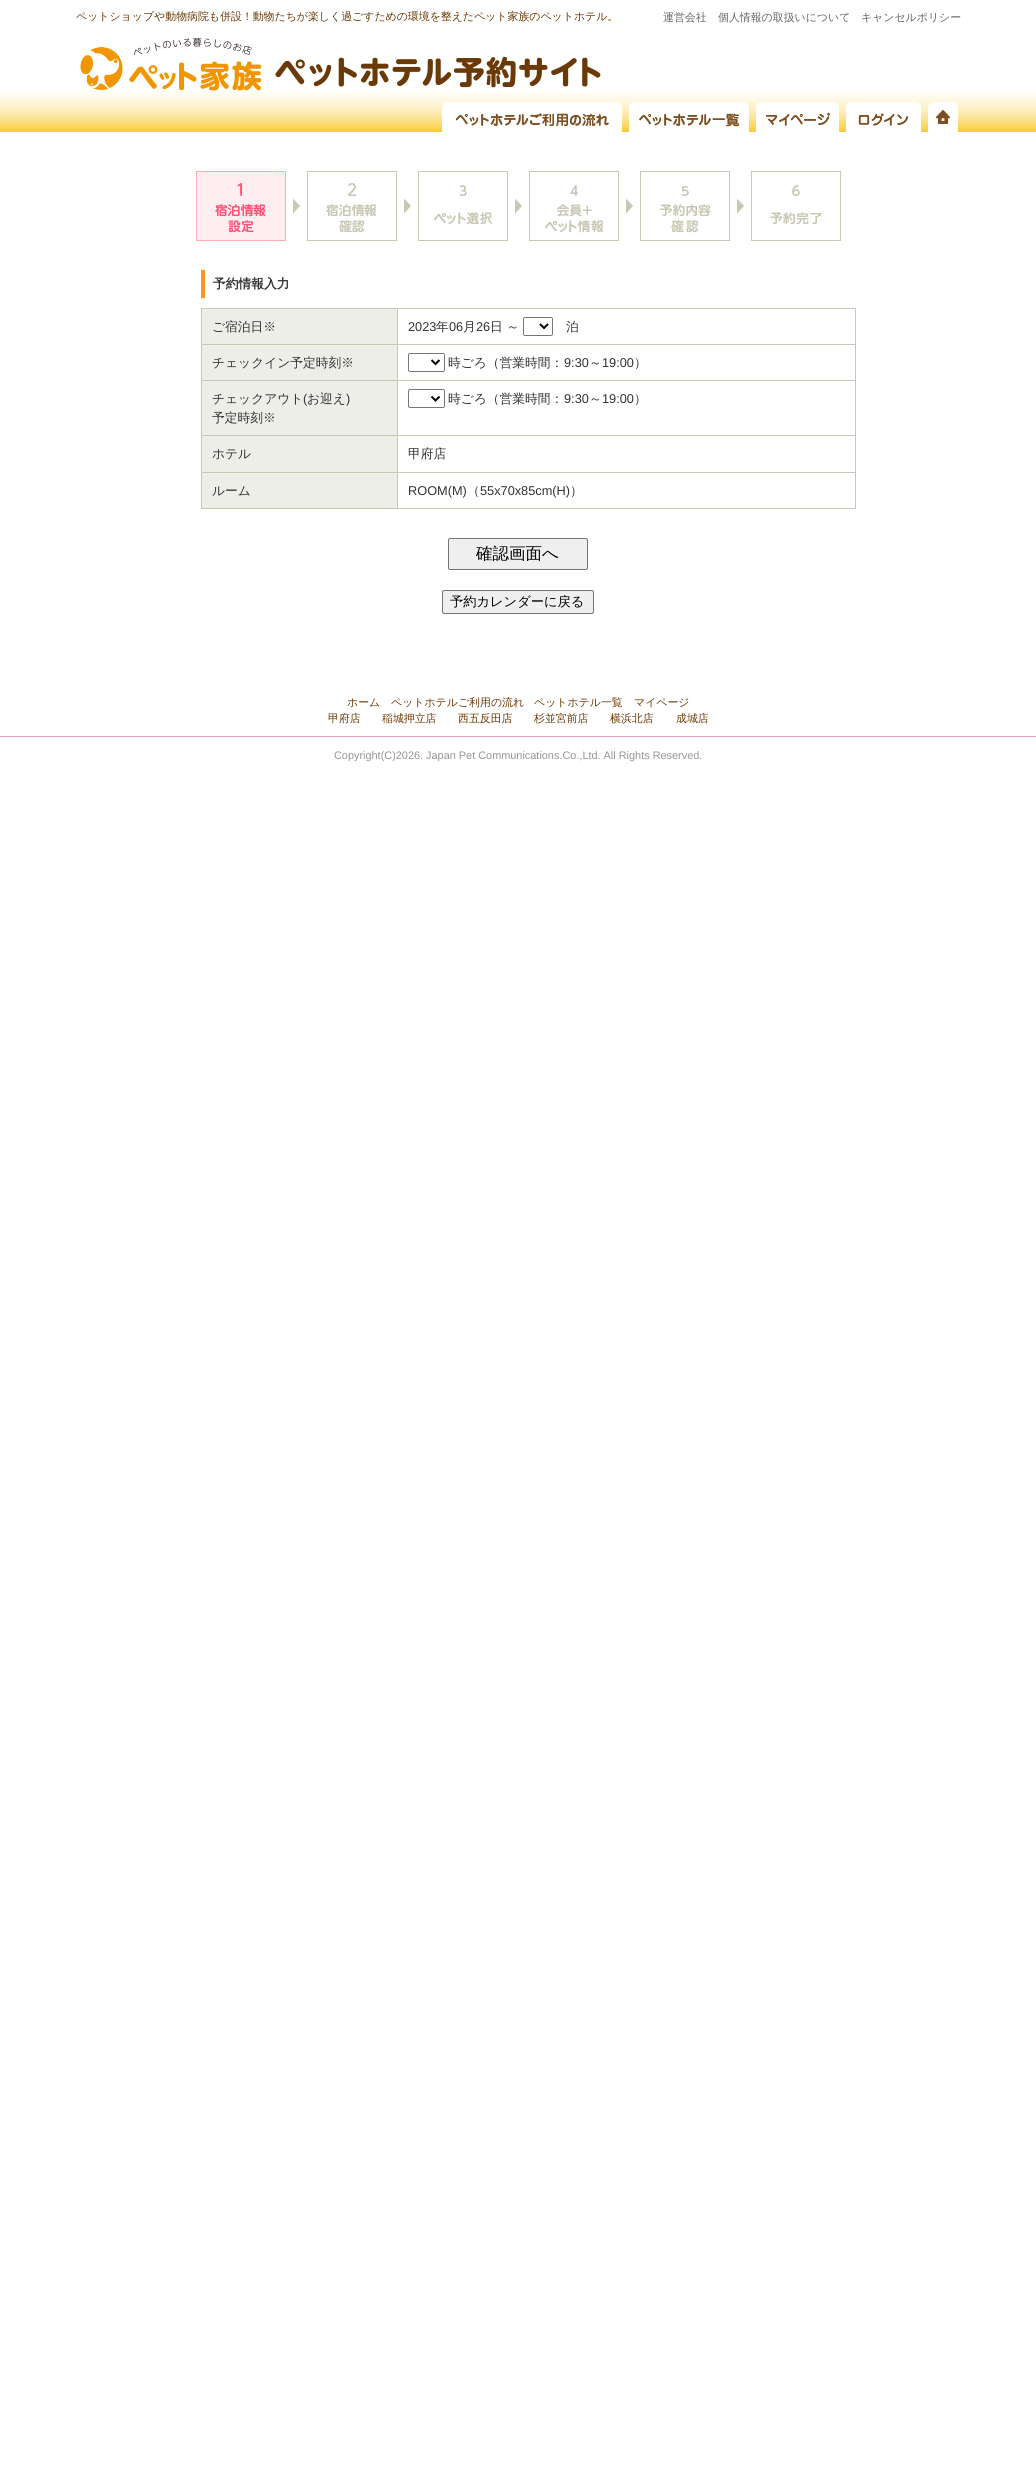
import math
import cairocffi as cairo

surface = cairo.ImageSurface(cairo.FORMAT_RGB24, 1036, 2479)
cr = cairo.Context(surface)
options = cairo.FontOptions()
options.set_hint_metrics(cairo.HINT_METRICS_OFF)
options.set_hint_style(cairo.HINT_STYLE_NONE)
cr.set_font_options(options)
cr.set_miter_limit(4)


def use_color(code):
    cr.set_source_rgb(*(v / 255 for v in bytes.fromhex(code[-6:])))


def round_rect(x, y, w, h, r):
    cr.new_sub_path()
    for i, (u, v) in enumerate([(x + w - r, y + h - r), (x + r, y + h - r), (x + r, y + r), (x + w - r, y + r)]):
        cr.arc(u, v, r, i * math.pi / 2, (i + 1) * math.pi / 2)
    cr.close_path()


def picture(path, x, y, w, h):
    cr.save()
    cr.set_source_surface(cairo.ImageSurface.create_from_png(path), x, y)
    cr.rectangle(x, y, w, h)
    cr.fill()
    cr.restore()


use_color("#ffffff")
cr.paint()
cr.select_font_face("WenQuanYi Zen Hei Medium")
cr.set_font_size(10.9)
use_color("#6a3906")
cr.move_to(76, 20)
cr.show_text("ペットショップや動物病院も併設！動物たちが楽しく過ごすための環境を整えたペット家族のペットホテル。")
use_color("#646464")
cr.move_to(663, 21)
cr.show_text("運営会社")
cr.move_to(718, 21)
cr.show_text("個人情報の取扱いについて")
cr.move_to(861, 21)
cr.show_text("キャンセルポリシー")
picture("img1.png", 0, 89, 1036, 43)
picture("img2.png", 80, 38, 521, 54)
picture("img3.png", 442, 102, 180, 30)
picture("img4.png", 629, 102, 120, 30)
picture("img5.png", 756, 102, 83, 30)
picture("img6.png", 846, 102, 75, 30)
picture("img7.png", 928, 102, 30, 30)
picture("img8.png", 196, 171, 645, 70)
use_color("#ff961e")
cr.rectangle(201, 270, 4, 28)
cr.fill()
cr.select_font_face("WenQuanYi Zen Hei", cairo.FONT_SLANT_NORMAL, cairo.FONT_WEIGHT_BOLD)
cr.set_font_size(12.75)
use_color("#323232")
cr.move_to(213, 288)
cr.show_text("予約情報入力")
use_color("#eeeee8")
cr.rectangle(202, 309, 195, 35)
cr.fill()
use_color("#c8c8b4")
cr.rectangle(397, 308, 459, 1)
cr.fill()
cr.rectangle(397, 344, 459, 1)
cr.fill()
cr.rectangle(397, 380, 459, 1)
cr.fill()
cr.rectangle(397, 435, 459, 1)
cr.fill()
cr.rectangle(397, 472, 459, 1)
cr.fill()
cr.rectangle(855, 472, 1, 37)
cr.fill()
cr.rectangle(397, 508, 459, 1)
cr.fill()
cr.rectangle(397, 472, 1, 37)
cr.fill()
cr.rectangle(201, 472, 197, 1)
cr.fill()
cr.rectangle(397, 435, 1, 38)
cr.fill()
cr.rectangle(201, 435, 197, 1)
cr.fill()
cr.rectangle(397, 380, 1, 56)
cr.fill()
cr.rectangle(201, 380, 197, 1)
cr.fill()
cr.rectangle(397, 344, 1, 37)
cr.fill()
cr.rectangle(201, 344, 197, 1)
cr.fill()
cr.rectangle(397, 308, 1, 37)
cr.fill()
cr.rectangle(201, 308, 197, 1)
cr.fill()
cr.rectangle(201, 508, 197, 1)
cr.fill()
cr.rectangle(201, 472, 1, 37)
cr.fill()
cr.rectangle(201, 435, 1, 38)
cr.fill()
cr.rectangle(201, 380, 1, 56)
cr.fill()
cr.rectangle(201, 344, 1, 37)
cr.fill()
cr.rectangle(201, 308, 1, 37)
cr.fill()
cr.select_font_face("WenQuanYi Zen Hei Medium")
use_color("#323232")
cr.move_to(212, 331)
cr.show_text("ご宿泊日※")
use_color("#c8c8b4")
cr.rectangle(855, 435, 1, 38)
cr.fill()
cr.rectangle(855, 380, 1, 56)
cr.fill()
cr.rectangle(855, 344, 1, 37)
cr.fill()
cr.rectangle(855, 308, 1, 37)
cr.fill()
cr.select_font_face("Liberation Sans")
use_color("#323232")
cr.move_to(408, 331)
cr.show_text("2023")
cr.select_font_face("WenQuanYi Zen Hei Medium")
cr.move_to(436, 331)
cr.show_text("年")
cr.select_font_face("Liberation Sans")
cr.move_to(449, 331)
cr.show_text("06")
cr.select_font_face("WenQuanYi Zen Hei Medium")
cr.move_to(463, 331)
cr.show_text("月")
cr.select_font_face("Liberation Sans")
cr.move_to(476, 331)
cr.show_text("26")
cr.select_font_face("WenQuanYi Zen Hei Medium")
cr.move_to(490, 331)
cr.show_text("日 ～")
round_rect(523.5, 317.5, 29, 18, 1.5)
use_color("#767676")
cr.set_line_width(1)
cr.stroke()
cr.new_path()
cr.move_to(540, 324)
cr.line_to(544, 328)
cr.line_to(548, 324)
use_color("#000000")
cr.set_line_width(2)
cr.stroke()
use_color("#323232")
cr.move_to(566, 331)
cr.show_text("泊")
use_color("#eeeee8")
cr.rectangle(202, 345, 195, 35)
cr.fill()
use_color("#323232")
cr.move_to(212, 367)
cr.show_text("チェックイン予定時刻※")
round_rect(408.5, 353.5, 36, 18, 1.5)
use_color("#767676")
cr.set_line_width(1)
cr.stroke()
cr.new_path()
cr.move_to(431.5, 360)
cr.line_to(435.5, 364)
cr.line_to(439.5, 360)
use_color("#000000")
cr.set_line_width(2)
cr.stroke()
use_color("#323232")
cr.move_to(448, 367)
cr.show_text("時ごろ（営業時間：")
cr.select_font_face("Liberation Sans")
cr.move_to(564, 367)
cr.show_text("9:30")
cr.select_font_face("WenQuanYi Zen Hei Medium")
cr.move_to(589, 367)
cr.show_text("～")
cr.select_font_face("Liberation Sans")
cr.move_to(602, 367)
cr.show_text("19:00")
cr.select_font_face("WenQuanYi Zen Hei Medium")
cr.move_to(634, 367)
cr.show_text("）")
use_color("#eeeee8")
cr.rectangle(202, 381, 195, 54)
cr.fill()
use_color("#323232")
cr.move_to(212, 403)
cr.show_text("チェックアウト")
cr.select_font_face("Liberation Sans")
cr.move_to(303, 403)
cr.show_text("(")
cr.select_font_face("WenQuanYi Zen Hei Medium")
cr.move_to(307, 403)
cr.show_text("お迎え")
cr.select_font_face("Liberation Sans")
cr.move_to(346, 403)
cr.show_text(")")
cr.select_font_face("WenQuanYi Zen Hei Medium")
cr.move_to(212, 422)
cr.show_text("予定時刻※")
round_rect(408.5, 389.5, 36, 18, 1.5)
use_color("#767676")
cr.set_line_width(1)
cr.stroke()
cr.new_path()
cr.move_to(431.5, 396.5)
cr.line_to(435.5, 400.5)
cr.line_to(439.5, 396.5)
use_color("#000000")
cr.set_line_width(2)
cr.stroke()
use_color("#323232")
cr.move_to(448, 403)
cr.show_text("時ごろ（営業時間：")
cr.select_font_face("Liberation Sans")
cr.move_to(564, 403)
cr.show_text("9:30")
cr.select_font_face("WenQuanYi Zen Hei Medium")
cr.move_to(589, 403)
cr.show_text("～")
cr.select_font_face("Liberation Sans")
cr.move_to(602, 403)
cr.show_text("19:00")
cr.select_font_face("WenQuanYi Zen Hei Medium")
cr.move_to(634, 403)
cr.show_text("）")
use_color("#eeeee8")
cr.rectangle(202, 436, 195, 36)
cr.fill()
use_color("#323232")
cr.move_to(212, 458)
cr.show_text("ホテル")
cr.move_to(408, 458)
cr.show_text("甲府店")
use_color("#eeeee8")
cr.rectangle(202, 473, 195, 35)
cr.fill()
use_color("#323232")
cr.move_to(212, 495)
cr.show_text("ルーム")
cr.select_font_face("Liberation Sans")
cr.move_to(408, 495)
cr.show_text("ROOM(M)")
cr.select_font_face("WenQuanYi Zen Hei Medium")
cr.move_to(467, 495)
cr.show_text("（")
cr.select_font_face("Liberation Sans")
cr.move_to(480, 495)
cr.show_text("55x70x85cm(H)")
cr.select_font_face("WenQuanYi Zen Hei Medium")
cr.move_to(570, 495)
cr.show_text("）")
use_color("#efefef")
round_rect(448.5, 538.5, 139, 31, 1.5)
cr.fill_preserve()
use_color("#767676")
cr.set_line_width(1)
cr.stroke()
cr.set_font_size(16.5)
use_color("#000000")
cr.move_to(476, 559)
cr.show_text("確認画面へ")
use_color("#efefef")
round_rect(442.5, 590.5, 151, 23, 1.5)
cr.fill_preserve()
use_color("#767676")
cr.stroke()
cr.set_font_size(13.25)
use_color("#000000")
cr.move_to(450, 606)
cr.show_text("予約カレンダーに戻る")
cr.set_font_size(10.9)
use_color("#6a3906")
cr.move_to(347, 706)
cr.show_text("ホーム")
cr.move_to(391, 706)
cr.show_text("ペットホテルご利用の流れ")
cr.move_to(534, 706)
cr.show_text("ペットホテル一覧")
cr.move_to(634, 706)
cr.show_text("マイページ")
cr.move_to(328, 722)
cr.show_text("甲府店")
cr.move_to(382, 722)
cr.show_text("稲城押立店")
cr.move_to(458, 722)
cr.show_text("西五反田店")
cr.move_to(534, 722)
cr.show_text("杉並宮前店")
cr.move_to(610, 722)
cr.show_text("横浜北店")
cr.move_to(676, 722)
cr.show_text("成城店")
use_color("#f19ec2")
cr.rectangle(0, 736, 1036, 1)
cr.fill()
cr.select_font_face("Liberation Sans")
use_color("#969696")
cr.move_to(334, 759)
cr.show_text("Copyright(C)2026. Japan Pet Communications.Co.,Ltd. All Rights Reserved.")
surface.write_to_png("result.png")
